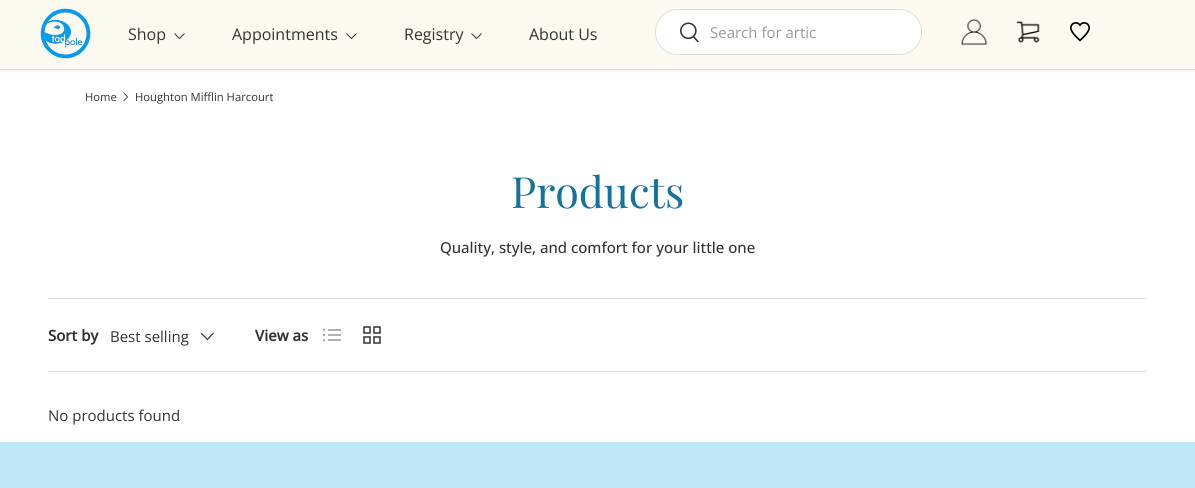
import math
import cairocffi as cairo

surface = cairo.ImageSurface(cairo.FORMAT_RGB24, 1195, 488)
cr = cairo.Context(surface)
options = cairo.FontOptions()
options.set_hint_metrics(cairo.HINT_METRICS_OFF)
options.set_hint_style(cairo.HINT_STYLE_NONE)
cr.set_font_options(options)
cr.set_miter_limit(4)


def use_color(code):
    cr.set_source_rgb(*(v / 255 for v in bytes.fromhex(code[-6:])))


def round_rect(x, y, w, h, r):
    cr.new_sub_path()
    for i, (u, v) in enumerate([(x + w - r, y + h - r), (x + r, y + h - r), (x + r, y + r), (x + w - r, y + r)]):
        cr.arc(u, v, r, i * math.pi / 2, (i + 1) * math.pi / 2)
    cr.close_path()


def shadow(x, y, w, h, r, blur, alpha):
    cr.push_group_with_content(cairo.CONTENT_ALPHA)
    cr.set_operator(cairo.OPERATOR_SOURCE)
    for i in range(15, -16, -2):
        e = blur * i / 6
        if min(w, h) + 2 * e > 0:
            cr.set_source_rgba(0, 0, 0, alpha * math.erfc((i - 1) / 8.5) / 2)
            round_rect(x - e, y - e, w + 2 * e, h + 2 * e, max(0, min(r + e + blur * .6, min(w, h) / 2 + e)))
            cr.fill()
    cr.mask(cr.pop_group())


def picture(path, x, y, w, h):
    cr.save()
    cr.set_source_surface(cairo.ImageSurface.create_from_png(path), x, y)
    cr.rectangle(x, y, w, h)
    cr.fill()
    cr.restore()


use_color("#ffffff")
cr.paint()
use_color("#000000")
shadow(-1, -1, 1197, 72, 0, 1.5, 0.08)
use_color("#fcf9f1")
cr.rectangle(0, 0, 1195, 69)
cr.fill()
picture("img1.png", 40, 8, 51, 51)
cr.select_font_face("Open Sans")
cr.set_font_size(16)
use_color("#333333")
cr.move_to(128, 40)
cr.show_text("Shop")
cr.new_path()
cr.move_to(184.5, 33.5)
cr.line_to(179.5, 38.5)
cr.line_to(174.5, 33.5)
cr.set_line_width(1)
cr.stroke()
cr.move_to(232, 40)
cr.show_text("Appointments")
cr.new_path()
cr.move_to(356.5, 33.5)
cr.line_to(351.5, 38.5)
cr.line_to(346.5, 33.5)
cr.stroke()
cr.move_to(404, 40)
cr.show_text("Registry")
cr.new_path()
cr.move_to(481.5, 33.5)
cr.line_to(476.5, 38.5)
cr.line_to(471.5, 33.5)
cr.stroke()
cr.move_to(529, 40)
cr.show_text("About Us")
round_rect(655.5, 9.5, 266, 45, 22.5)
use_color("#dedbd5")
cr.stroke()
use_color("#ffffff")
round_rect(656, 10, 265, 44, 22)
cr.fill()
picture("img2.png", 680, 22, 19, 21)
cr.set_font_size(15)
use_color("#999999")
cr.move_to(710, 38)
cr.show_text("Search for artic")
picture("img3.png", 961, 19, 27, 27)
picture("img4.png", 1016, 21, 24, 22)
picture("img5.png", 1070, 22, 20, 20)
use_color("#dedbd5")
cr.rectangle(0, 69, 1195, 1)
cr.fill()
cr.set_font_size(11.25)
use_color("#333333")
cr.move_to(85, 101)
cr.show_text("Home")
cr.new_path()
cr.move_to(123.5, 92.5)
cr.line_to(127.5, 97)
cr.line_to(123.5, 101)
cr.set_line_width(0.8)
cr.stroke()
cr.move_to(135, 101)
cr.show_text("Houghton Mifflin Harcourt")
cr.select_font_face("Playfair Display")
cr.set_font_size(43)
use_color("#14729b")
cr.move_to(511, 208)
cr.show_text("Products")
cr.select_font_face("Open Sans Medium")
cr.set_font_size(15)
use_color("#333333")
cr.move_to(440, 253)
cr.show_text("Quality, style, and comfort for your little one")
use_color("#e0e0e0")
cr.rectangle(48, 298, 1099, 1)
cr.fill()
cr.rectangle(48, 371, 1099, 1)
cr.fill()
cr.select_font_face("Open Sans", cairo.FONT_SLANT_NORMAL, cairo.FONT_WEIGHT_BOLD)
use_color("#333333")
cr.move_to(48, 341)
cr.show_text("Sort by")
cr.select_font_face("Open Sans")
cr.move_to(110, 342)
cr.show_text("Best selling")
cr.new_path()
cr.move_to(213.5, 333)
cr.line_to(207.5, 339.5)
cr.line_to(201, 333)
cr.set_line_width(1.2)
cr.stroke()
cr.select_font_face("Open Sans", cairo.FONT_SLANT_NORMAL, cairo.FONT_WEIGHT_BOLD)
cr.move_to(255, 341)
cr.show_text("View as")
picture("img6.png", 323, 328, 18, 14)
picture("img7.png", 363, 326, 18, 18)
cr.select_font_face("Open Sans")
cr.move_to(48, 421)
cr.show_text("No products found")
use_color("#c0e7f8")
cr.rectangle(0, 442, 1195, 46)
cr.fill()
surface.write_to_png("result.png")
